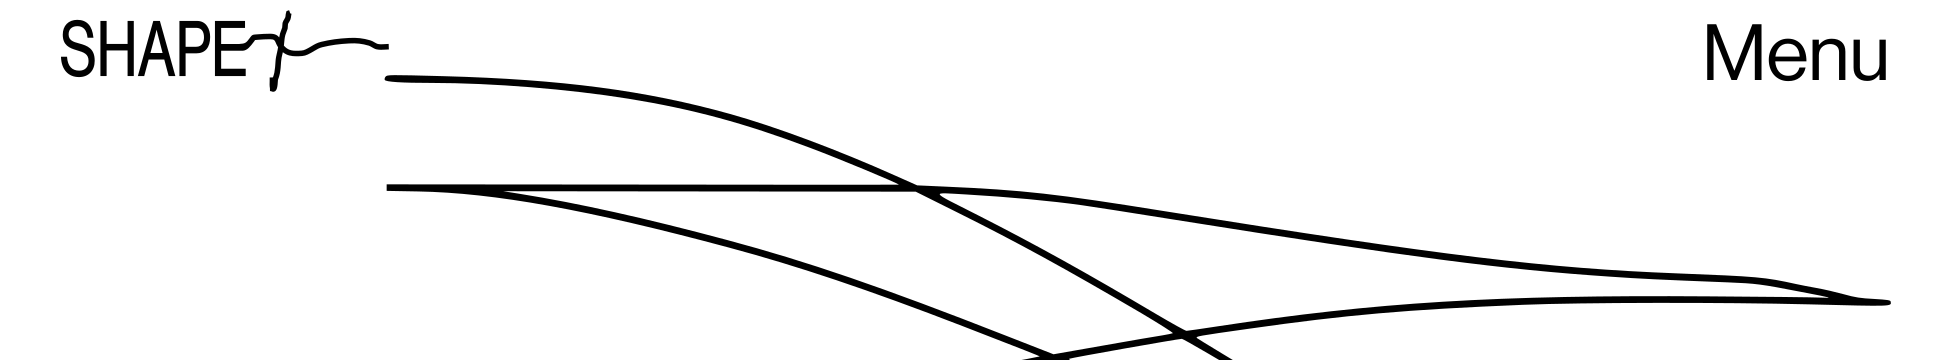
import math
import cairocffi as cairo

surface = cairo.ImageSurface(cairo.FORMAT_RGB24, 1951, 360)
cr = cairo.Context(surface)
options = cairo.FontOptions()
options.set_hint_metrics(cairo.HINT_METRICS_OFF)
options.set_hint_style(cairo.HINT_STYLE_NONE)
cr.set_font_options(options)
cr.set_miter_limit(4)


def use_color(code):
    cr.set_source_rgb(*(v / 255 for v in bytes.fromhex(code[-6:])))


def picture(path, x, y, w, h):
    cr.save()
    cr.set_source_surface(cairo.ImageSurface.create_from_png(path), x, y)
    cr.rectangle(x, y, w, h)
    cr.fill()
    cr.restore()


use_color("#ffffff")
cr.paint()
picture("img1.png", 384, 75, 1507, 285)
picture("img2.png", 61, 10, 328, 82)
cr.select_font_face("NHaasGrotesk")
cr.set_font_size(78)
use_color("#000000")
cr.move_to(1702, 80)
cr.show_text("Menu")
surface.write_to_png("result.png")
